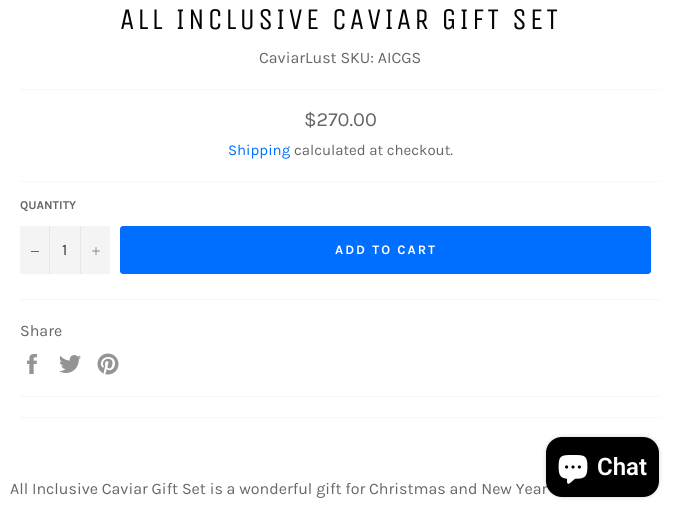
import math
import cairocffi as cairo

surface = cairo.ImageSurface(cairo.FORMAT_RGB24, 681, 518)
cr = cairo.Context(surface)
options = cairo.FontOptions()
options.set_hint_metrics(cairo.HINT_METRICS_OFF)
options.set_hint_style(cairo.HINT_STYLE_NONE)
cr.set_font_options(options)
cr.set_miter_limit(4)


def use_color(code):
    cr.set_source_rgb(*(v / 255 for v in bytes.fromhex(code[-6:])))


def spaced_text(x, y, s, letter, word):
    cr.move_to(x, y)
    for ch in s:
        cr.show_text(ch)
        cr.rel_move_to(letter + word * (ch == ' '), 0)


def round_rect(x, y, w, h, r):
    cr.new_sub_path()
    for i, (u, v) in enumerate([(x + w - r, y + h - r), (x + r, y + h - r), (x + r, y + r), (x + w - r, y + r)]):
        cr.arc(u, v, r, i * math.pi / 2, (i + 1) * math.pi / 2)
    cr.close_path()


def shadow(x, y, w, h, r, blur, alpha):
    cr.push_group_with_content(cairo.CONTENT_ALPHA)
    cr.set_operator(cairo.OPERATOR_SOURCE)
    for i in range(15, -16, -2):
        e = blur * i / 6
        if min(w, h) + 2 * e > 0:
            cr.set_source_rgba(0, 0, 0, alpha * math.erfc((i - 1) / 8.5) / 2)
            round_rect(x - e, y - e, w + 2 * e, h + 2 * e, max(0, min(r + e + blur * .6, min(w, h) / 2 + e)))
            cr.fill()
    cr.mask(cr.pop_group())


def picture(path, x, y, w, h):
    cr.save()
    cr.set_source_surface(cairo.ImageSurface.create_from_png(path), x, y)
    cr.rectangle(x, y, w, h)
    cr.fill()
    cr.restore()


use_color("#ffffff")
cr.paint()
cr.select_font_face("Unica One")
cr.set_font_size(30)
use_color("#030303")
spaced_text(120, 29, "ALL INCLUSIVE CAVIAR GIFT SET", 3, 0)
cr.select_font_face("Karla")
cr.set_font_size(16)
use_color("#666666")
cr.move_to(259, 63)
cr.show_text("CaviarLust SKU: AICGS")
use_color("#f7f7f7")
cr.rectangle(20, 89, 641, 1)
cr.fill()
cr.set_font_size(20)
use_color("#666666")
cr.move_to(304, 126)
cr.show_text("$270.00")
cr.set_font_size(15)
use_color("#006eff")
cr.move_to(228, 155)
cr.show_text("Shipping")
use_color("#666666")
cr.move_to(294, 155)
cr.show_text("calculated at checkout.")
use_color("#f7f7f7")
cr.rectangle(20, 181, 641, 1)
cr.fill()
cr.select_font_face("Karla", cairo.FONT_SLANT_NORMAL, cairo.FONT_WEIGHT_BOLD)
cr.set_font_size(12)
use_color("#666666")
cr.move_to(20, 209)
cr.show_text("QUANTITY")
use_color("#f4f4f4")
cr.rectangle(20, 226, 90, 48)
cr.fill()
use_color("#e7e7e7")
cr.rectangle(49, 226, 1, 48)
cr.fill()
use_color("#666666")
cr.rectangle(31, 251, 8, 1)
cr.fill()
cr.select_font_face("Karla")
cr.set_font_size(16)
use_color("#333333")
cr.move_to(62, 255)
cr.show_text("1")
use_color("#e7e7e7")
cr.rectangle(80, 226, 1, 48)
cr.fill()
picture("img1.png", 92, 247, 8, 8)
use_color("#006eff")
round_rect(120, 226, 531, 48, 3)
cr.fill()
cr.select_font_face("Karla", cairo.FONT_SLANT_NORMAL, cairo.FONT_WEIGHT_BOLD)
cr.set_font_size(13)
use_color("#ffffff")
spaced_text(335, 254, "ADD TO CART", 2, 0)
use_color("#f7f7f7")
cr.rectangle(20, 299, 641, 1)
cr.fill()
cr.select_font_face("Karla")
cr.set_font_size(16)
use_color("#666666")
cr.move_to(20, 336)
cr.show_text("Share")
picture("img2.png", 27, 354, 10, 20)
picture("img3.png", 59, 355, 22, 18)
picture("img4.png", 97, 353, 22, 22)
use_color("#f7f7f7")
cr.rectangle(20, 396, 641, 1)
cr.fill()
cr.rectangle(20, 417, 641, 1)
cr.fill()
use_color("#666666")
cr.move_to(10, 494)
cr.show_text("All Inclusive Caviar Gift Set is a wonderful gift for Christmas and New Year")
use_color("#000000")
shadow(546, 437, 113, 60, 16, 2.5, 0.15)
use_color("#000000")
round_rect(546, 437, 113, 60, 16)
cr.fill()
picture("img5.png", 558, 455, 30, 29)
cr.select_font_face("Roboto SemiBold")
cr.set_font_size(24)
use_color("#ffffff")
cr.move_to(597, 475)
cr.show_text("Chat")
surface.write_to_png("result.png")
